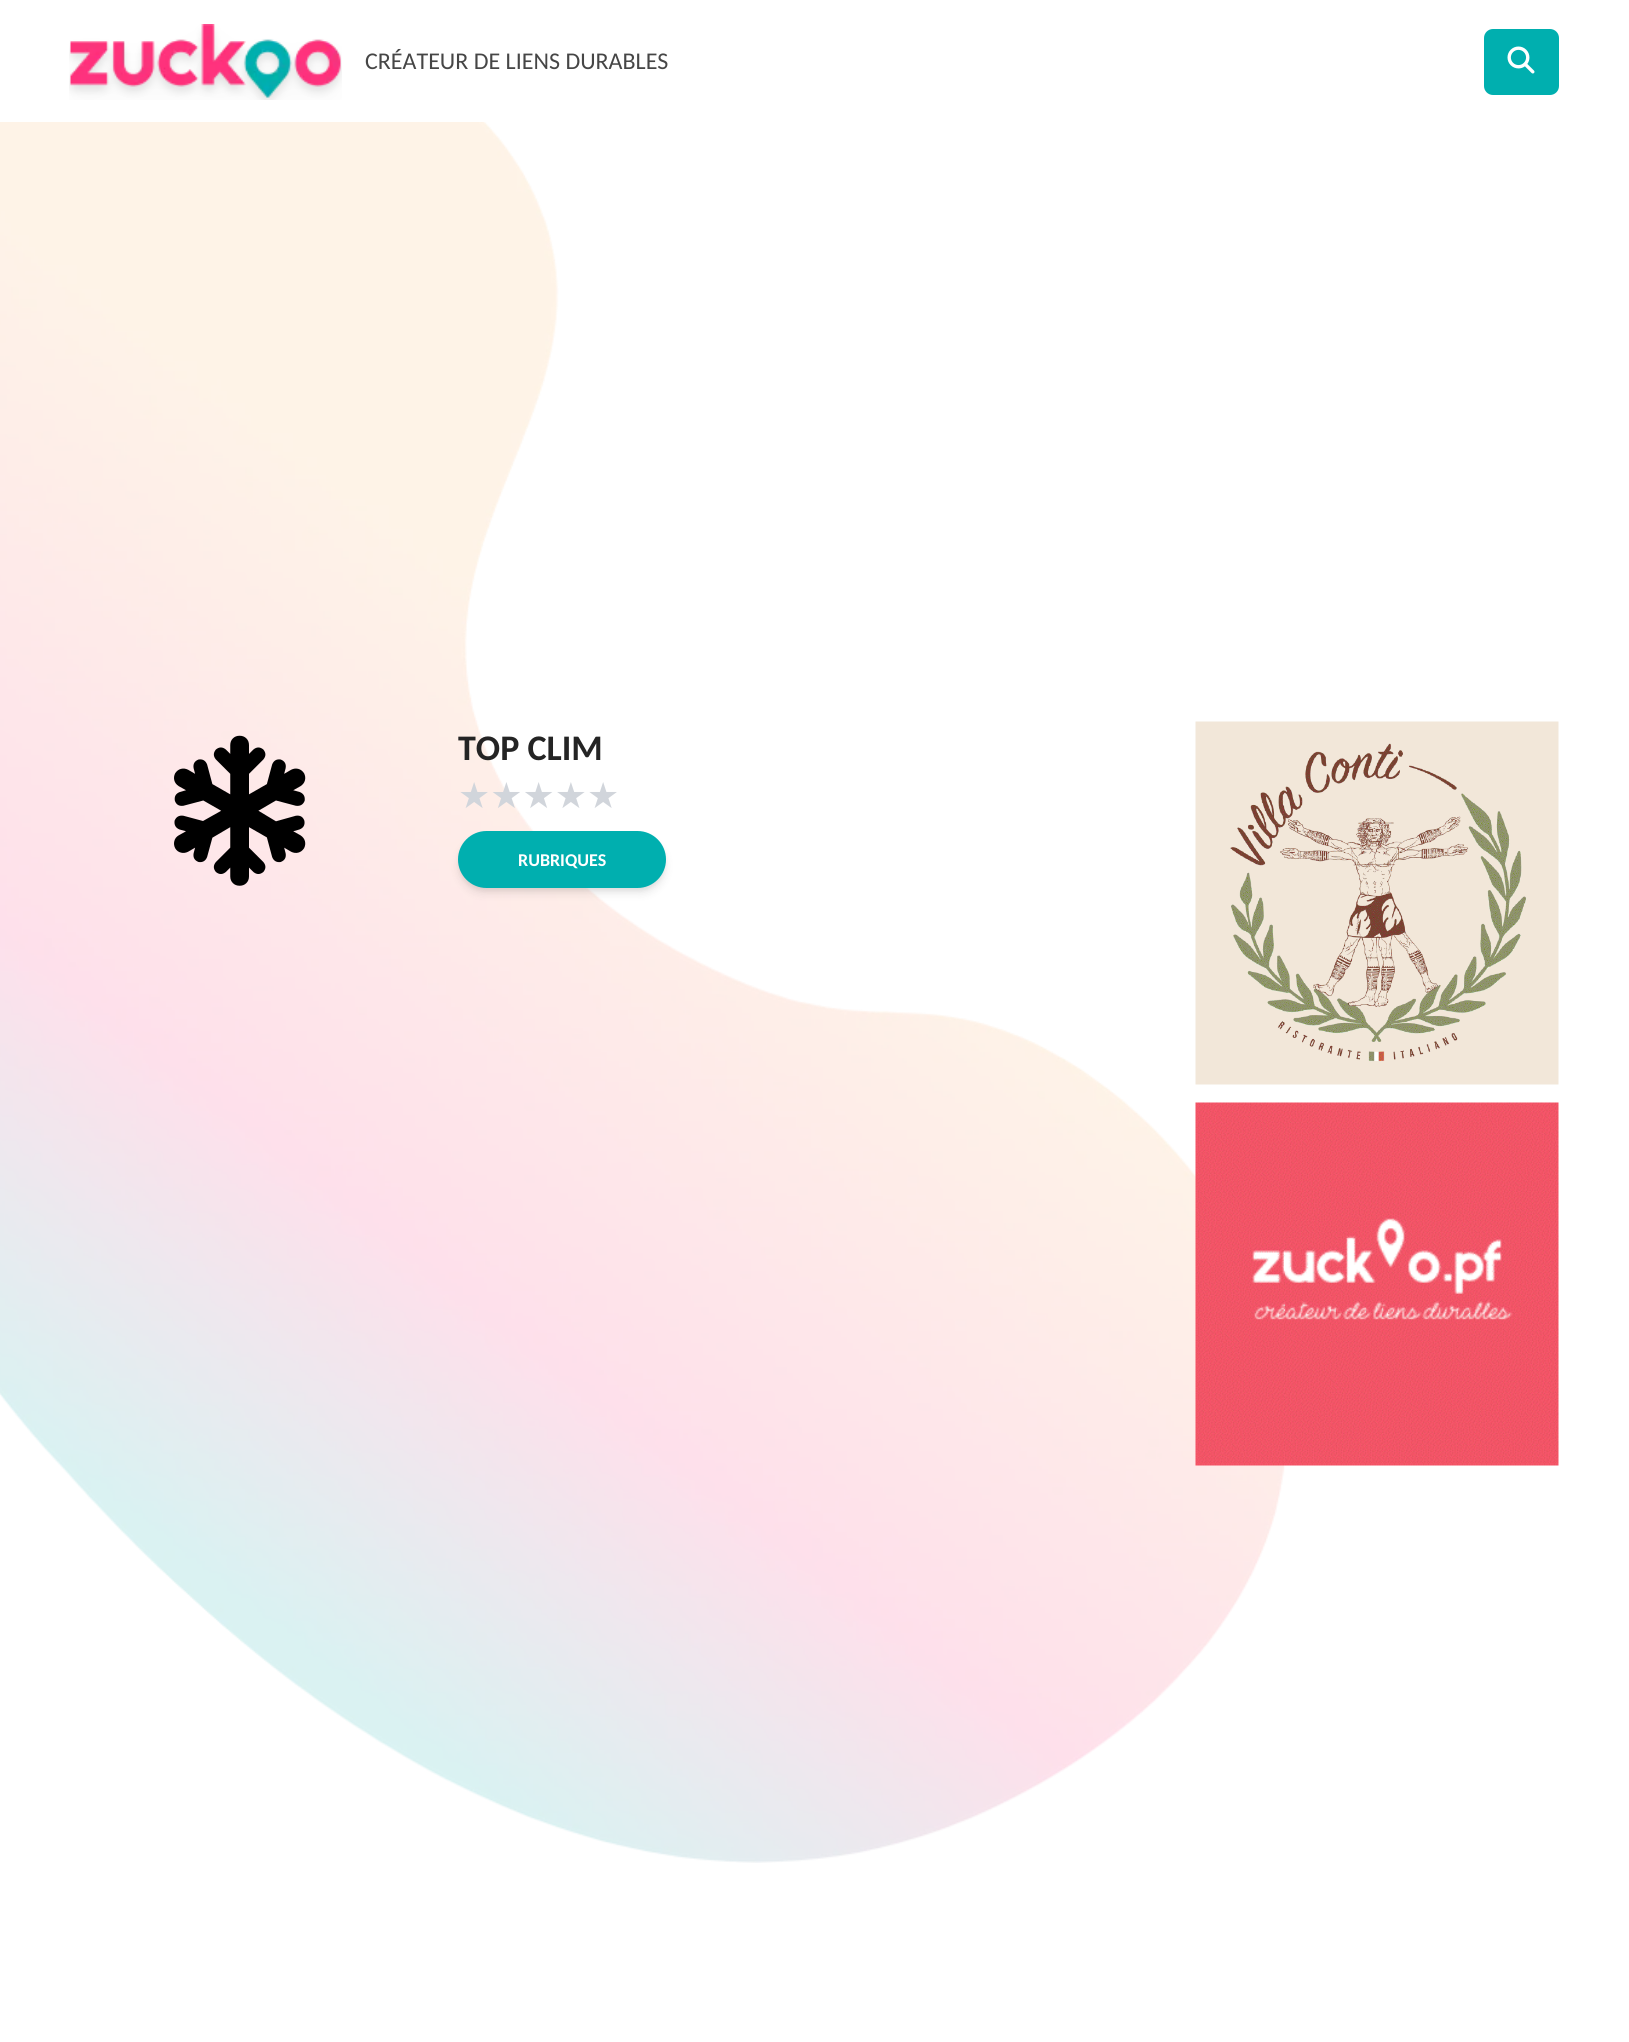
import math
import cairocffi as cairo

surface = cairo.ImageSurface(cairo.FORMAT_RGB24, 1629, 2042)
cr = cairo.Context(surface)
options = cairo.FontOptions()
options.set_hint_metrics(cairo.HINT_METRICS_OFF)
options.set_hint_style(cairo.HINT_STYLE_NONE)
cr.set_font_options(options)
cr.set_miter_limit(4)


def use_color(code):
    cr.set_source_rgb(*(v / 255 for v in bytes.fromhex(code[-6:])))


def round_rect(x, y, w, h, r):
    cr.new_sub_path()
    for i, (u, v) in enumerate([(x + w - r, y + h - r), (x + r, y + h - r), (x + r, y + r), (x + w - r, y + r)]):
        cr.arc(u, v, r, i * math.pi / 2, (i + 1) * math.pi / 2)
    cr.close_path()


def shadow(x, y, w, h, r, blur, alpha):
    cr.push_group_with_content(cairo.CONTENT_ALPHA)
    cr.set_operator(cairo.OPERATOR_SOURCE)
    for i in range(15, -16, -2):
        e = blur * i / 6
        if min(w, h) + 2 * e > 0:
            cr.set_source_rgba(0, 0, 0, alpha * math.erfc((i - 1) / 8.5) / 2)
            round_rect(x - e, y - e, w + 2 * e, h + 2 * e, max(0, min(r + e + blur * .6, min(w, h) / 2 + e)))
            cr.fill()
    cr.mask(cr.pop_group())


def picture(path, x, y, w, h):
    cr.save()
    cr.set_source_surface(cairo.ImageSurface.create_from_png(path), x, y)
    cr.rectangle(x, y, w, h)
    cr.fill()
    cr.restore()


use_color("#ffffff")
cr.paint()
picture("img1.png", 69, 24, 273, 76)
cr.select_font_face("Carlito")
cr.set_font_size(24)
use_color("#464646")
cr.move_to(365, 69)
cr.show_text("CRÉATEUR DE LIENS DURABLES")
use_color("#00afaf")
round_rect(1484, 29, 75, 66, 9)
cr.fill()
picture("img2.png", 1507, 46, 28, 28)
picture("img3.png", 0, 122, 1285, 1741)
picture("img4.png", 174, 735, 132, 151)
cr.select_font_face("Carlito", cairo.FONT_SLANT_NORMAL, cairo.FONT_WEIGHT_BOLD)
cr.set_font_size(36)
use_color("#242424")
cr.move_to(458, 760)
cr.show_text("TOP CLIM")
cr.select_font_face("DejaVu Sans")
use_color("#d1d5db")
cr.move_to(458, 808)
cr.show_text("★★★★★")
use_color("#000000")
shadow(461, 837, 202, 51, 25.5, 3, 0.1)
shadow(459, 839, 206, 54, 27, 4.5, 0.1)
use_color("#00afaf")
round_rect(458, 831, 208, 57, 28.5)
cr.fill()
cr.select_font_face("Carlito", cairo.FONT_SLANT_NORMAL, cairo.FONT_WEIGHT_BOLD)
cr.set_font_size(18)
use_color("#ffffff")
cr.move_to(518, 866)
cr.show_text("RUBRIQUES")
picture("img5.png", 1195, 721, 364, 364)
picture("img6.png", 1195, 1102, 364, 364)
surface.write_to_png("result.png")
